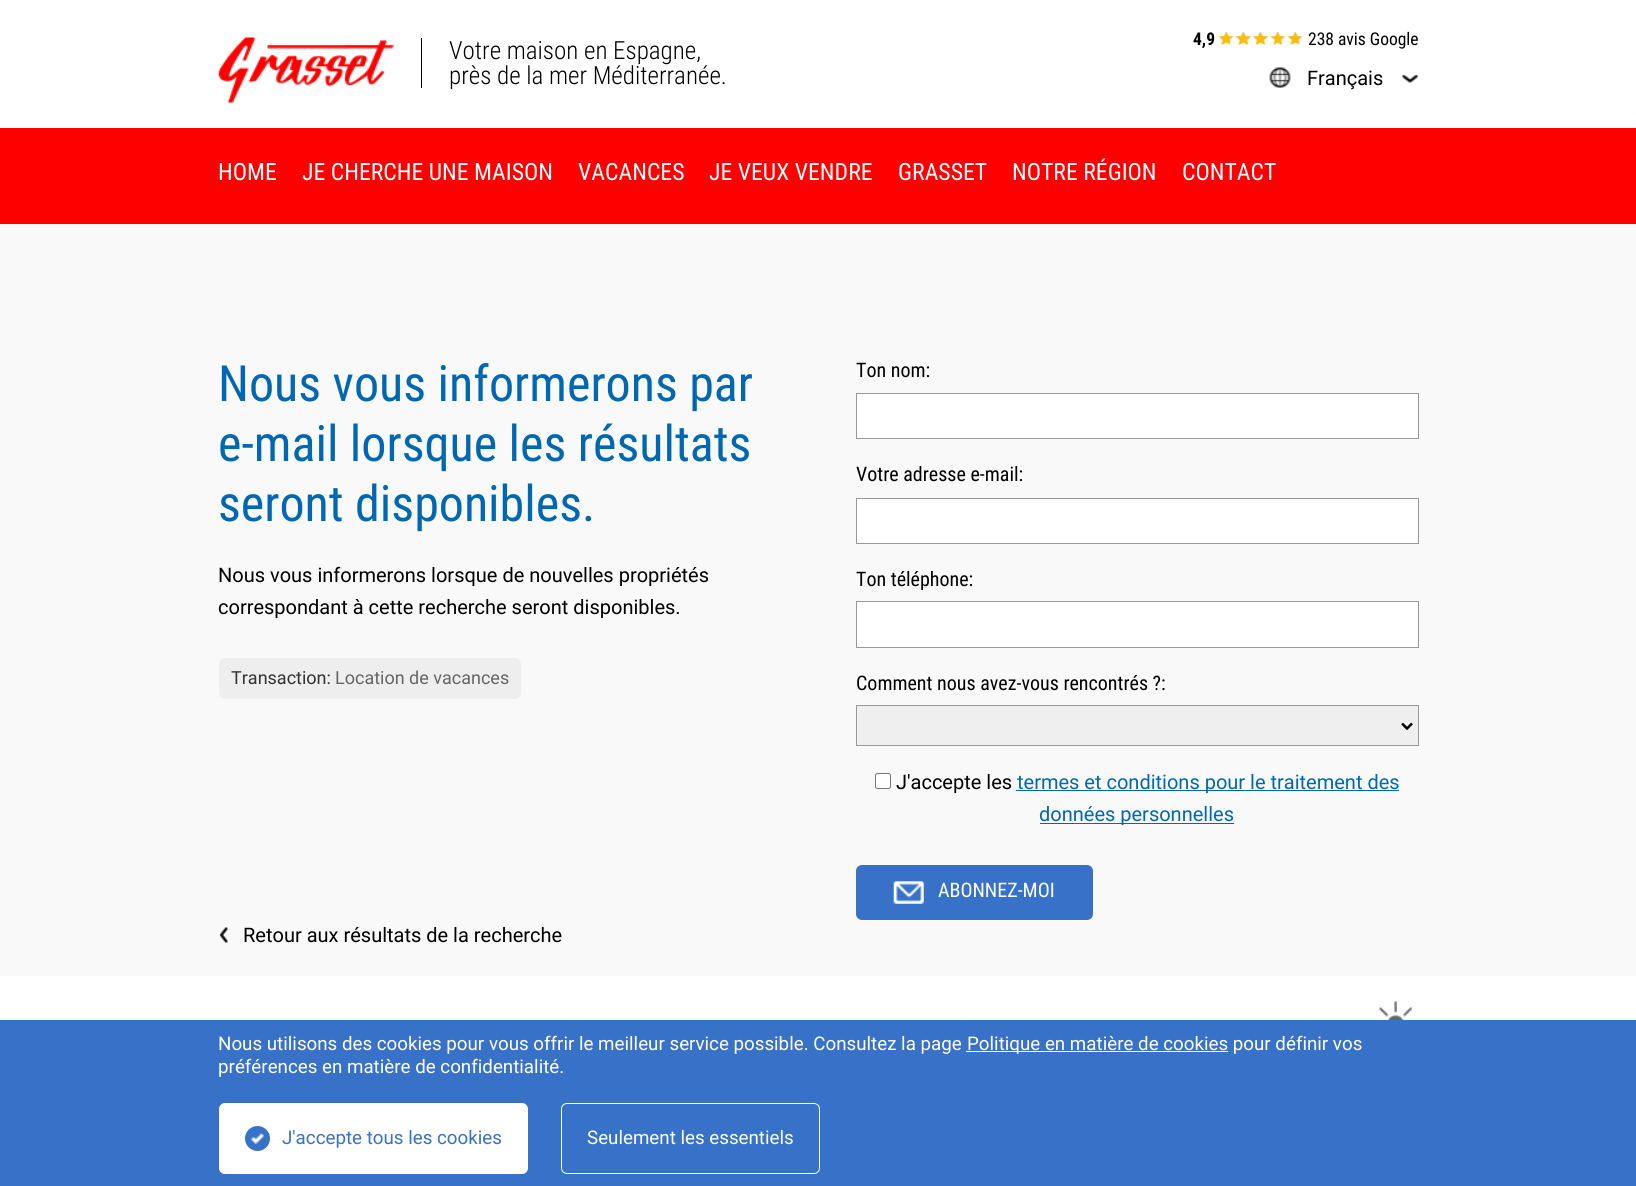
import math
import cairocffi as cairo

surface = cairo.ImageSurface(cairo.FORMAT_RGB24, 1636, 1186)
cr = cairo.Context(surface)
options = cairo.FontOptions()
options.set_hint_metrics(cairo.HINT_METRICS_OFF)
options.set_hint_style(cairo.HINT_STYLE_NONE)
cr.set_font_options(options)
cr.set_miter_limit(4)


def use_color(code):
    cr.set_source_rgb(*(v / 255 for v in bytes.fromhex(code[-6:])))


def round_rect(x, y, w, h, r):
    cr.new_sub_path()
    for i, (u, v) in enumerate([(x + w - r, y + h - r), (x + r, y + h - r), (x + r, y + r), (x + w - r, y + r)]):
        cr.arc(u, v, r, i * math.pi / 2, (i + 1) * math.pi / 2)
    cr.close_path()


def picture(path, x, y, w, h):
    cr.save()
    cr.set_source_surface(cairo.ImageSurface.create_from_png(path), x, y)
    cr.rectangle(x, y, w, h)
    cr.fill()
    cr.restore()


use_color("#f9f9f9")
cr.paint()
use_color("#ffffff")
cr.rectangle(0, 0, 1636, 128)
cr.fill()
picture("img1.png", 218, 37, 176, 66)
use_color("#000000")
cr.rectangle(421, 38, 1, 50)
cr.fill()
cr.select_font_face("Roboto Condensed Light")
cr.set_font_size(25)
cr.move_to(449, 59)
cr.show_text("Votre maison en Espagne,")
cr.move_to(449, 84)
cr.show_text("près de la mer Méditerranée.")
cr.select_font_face("Roboto Condensed", cairo.FONT_SLANT_NORMAL, cairo.FONT_WEIGHT_BOLD)
cr.set_font_size(17.5)
cr.move_to(1193, 45)
cr.show_text("4,9")
picture("img2.png", 1218, 32, 85, 13)
picture("img3.png", 1218, 31, 84, 14)
cr.select_font_face("Roboto Condensed")
cr.move_to(1308, 45)
cr.show_text("238 avis Google")
picture("img4.png", 1269, 67, 22, 21)
cr.select_font_face("Roboto")
cr.set_font_size(20)
cr.move_to(1307, 85)
cr.show_text("Français")
picture("img5.png", 1401, 74, 18, 9)
use_color("#ff0000")
cr.rectangle(0, 128, 1636, 96)
cr.fill()
cr.select_font_face("Roboto Condensed")
cr.set_font_size(23.75)
use_color("#ffffff")
cr.move_to(218, 180)
cr.show_text("HOME")
cr.move_to(302, 180)
cr.show_text("JE CHERCHE UNE MAISON")
cr.move_to(578, 180)
cr.show_text("VACANCES")
cr.move_to(709, 180)
cr.show_text("JE VEUX VENDRE")
cr.move_to(898, 180)
cr.show_text("GRASSET")
cr.move_to(1012, 180)
cr.show_text("NOTRE RÉGION")
cr.move_to(1182, 180)
cr.show_text("CONTACT")
cr.set_font_size(50)
use_color("#0068b3")
cr.move_to(218, 401)
cr.show_text("Nous vous informerons par")
cr.move_to(218, 461)
cr.show_text("e-mail lorsque les résultats")
cr.move_to(218, 521)
cr.show_text("seront disponibles.")
cr.select_font_face("Roboto")
cr.set_font_size(20)
use_color("#000000")
cr.move_to(218, 582)
cr.show_text("Nous vous informerons lorsque de nouvelles propriétés")
cr.move_to(218, 614)
cr.show_text("correspondant à cette recherche seront disponibles.")
use_color("#eeeeee")
round_rect(219, 658, 302, 41, 6)
cr.fill()
cr.set_font_size(18)
use_color("#333333")
cr.move_to(231, 684)
cr.show_text("Transaction:")
use_color("#666666")
cr.move_to(335, 684)
cr.show_text("Location de vacances")
cr.select_font_face("Roboto Condensed")
cr.set_font_size(20)
use_color("#000000")
cr.move_to(856, 377)
cr.show_text("Ton nom:")
use_color("#ffffff")
cr.rectangle(856.5, 393.5, 562, 45)
cr.fill_preserve()
use_color("#999999")
cr.set_line_width(1)
cr.stroke()
use_color("#000000")
cr.move_to(856, 481)
cr.show_text("Votre adresse e-mail:")
use_color("#ffffff")
cr.rectangle(856.5, 498.5, 562, 45)
cr.fill_preserve()
use_color("#999999")
cr.stroke()
use_color("#000000")
cr.move_to(856, 586)
cr.show_text("Ton téléphone:")
use_color("#ffffff")
cr.rectangle(856.5, 601.5, 562, 46)
cr.fill_preserve()
use_color("#999999")
cr.stroke()
use_color("#000000")
cr.move_to(856, 690)
cr.show_text("Comment nous avez-vous rencontrés ?:")
use_color("#efefef")
cr.rectangle(856.5, 705.5, 562, 40)
cr.fill_preserve()
use_color("#999999")
cr.stroke()
cr.new_path()
cr.move_to(1402, 723.5)
cr.line_to(1407, 728.5)
cr.line_to(1412, 723.5)
use_color("#000000")
cr.set_line_width(2.5)
cr.stroke()
use_color("#ffffff")
round_rect(875.5, 773.5, 15, 15, 2)
cr.fill_preserve()
use_color("#767676")
cr.set_line_width(1)
cr.stroke()
cr.select_font_face("Roboto")
use_color("#000000")
cr.move_to(896, 789)
cr.show_text("J'accepte les")
use_color("#0068b3")
cr.rectangle(1016, 790, 383, 1)
cr.fill()
cr.move_to(1017, 789)
cr.show_text("termes et conditions pour le traitement des")
cr.rectangle(1040, 823, 194, 1)
cr.fill()
cr.move_to(1039, 821)
cr.show_text("données personnelles")
use_color("#3771c8")
round_rect(856, 865, 237, 55, 6)
cr.fill()
picture("img6.png", 893, 881, 31, 23)
cr.select_font_face("Roboto Condensed")
use_color("#ffffff")
cr.move_to(938, 897)
cr.show_text("ABONNEZ-MOI")
picture("img7.png", 219, 927, 9, 16)
cr.select_font_face("Roboto")
use_color("#000000")
cr.move_to(243, 942)
cr.show_text("Retour aux résultats de la recherche")
picture("img8.png", 0, 1001, 1636, 19)
use_color("#ffffff")
cr.rectangle(0, 976, 1636, 25)
cr.fill()
use_color("#3771c8")
cr.rectangle(0, 1020, 1636, 166)
cr.fill()
cr.set_font_size(18.75)
use_color("#ffffff")
cr.move_to(218, 1050)
cr.show_text("Nous utilisons des cookies pour vous offrir le meilleur service possible. Consultez la page")
cr.rectangle(966, 1051, 262, 1)
cr.fill()
cr.move_to(967, 1050)
cr.show_text("Politique en matière de cookies pour définir vos")
cr.move_to(218, 1073)
cr.show_text("préférences en matière de confidentialité.")
round_rect(219.5, 1103.5, 308, 70, 5.5)
cr.fill_preserve()
cr.stroke()
use_color("#3771c8")
cr.arc(257.5, 1138.5, 12.5, 0, 2 * math.pi)
cr.fill()
picture("img9.png", 250, 1133, 14, 11)
cr.move_to(282, 1144)
cr.show_text("J'accepte tous les cookies")
round_rect(561.5, 1103.5, 258, 70, 5.5)
use_color("#ffffff")
cr.stroke()
cr.move_to(587, 1144)
cr.show_text("Seulement les essentiels")
surface.write_to_png("result.png")
